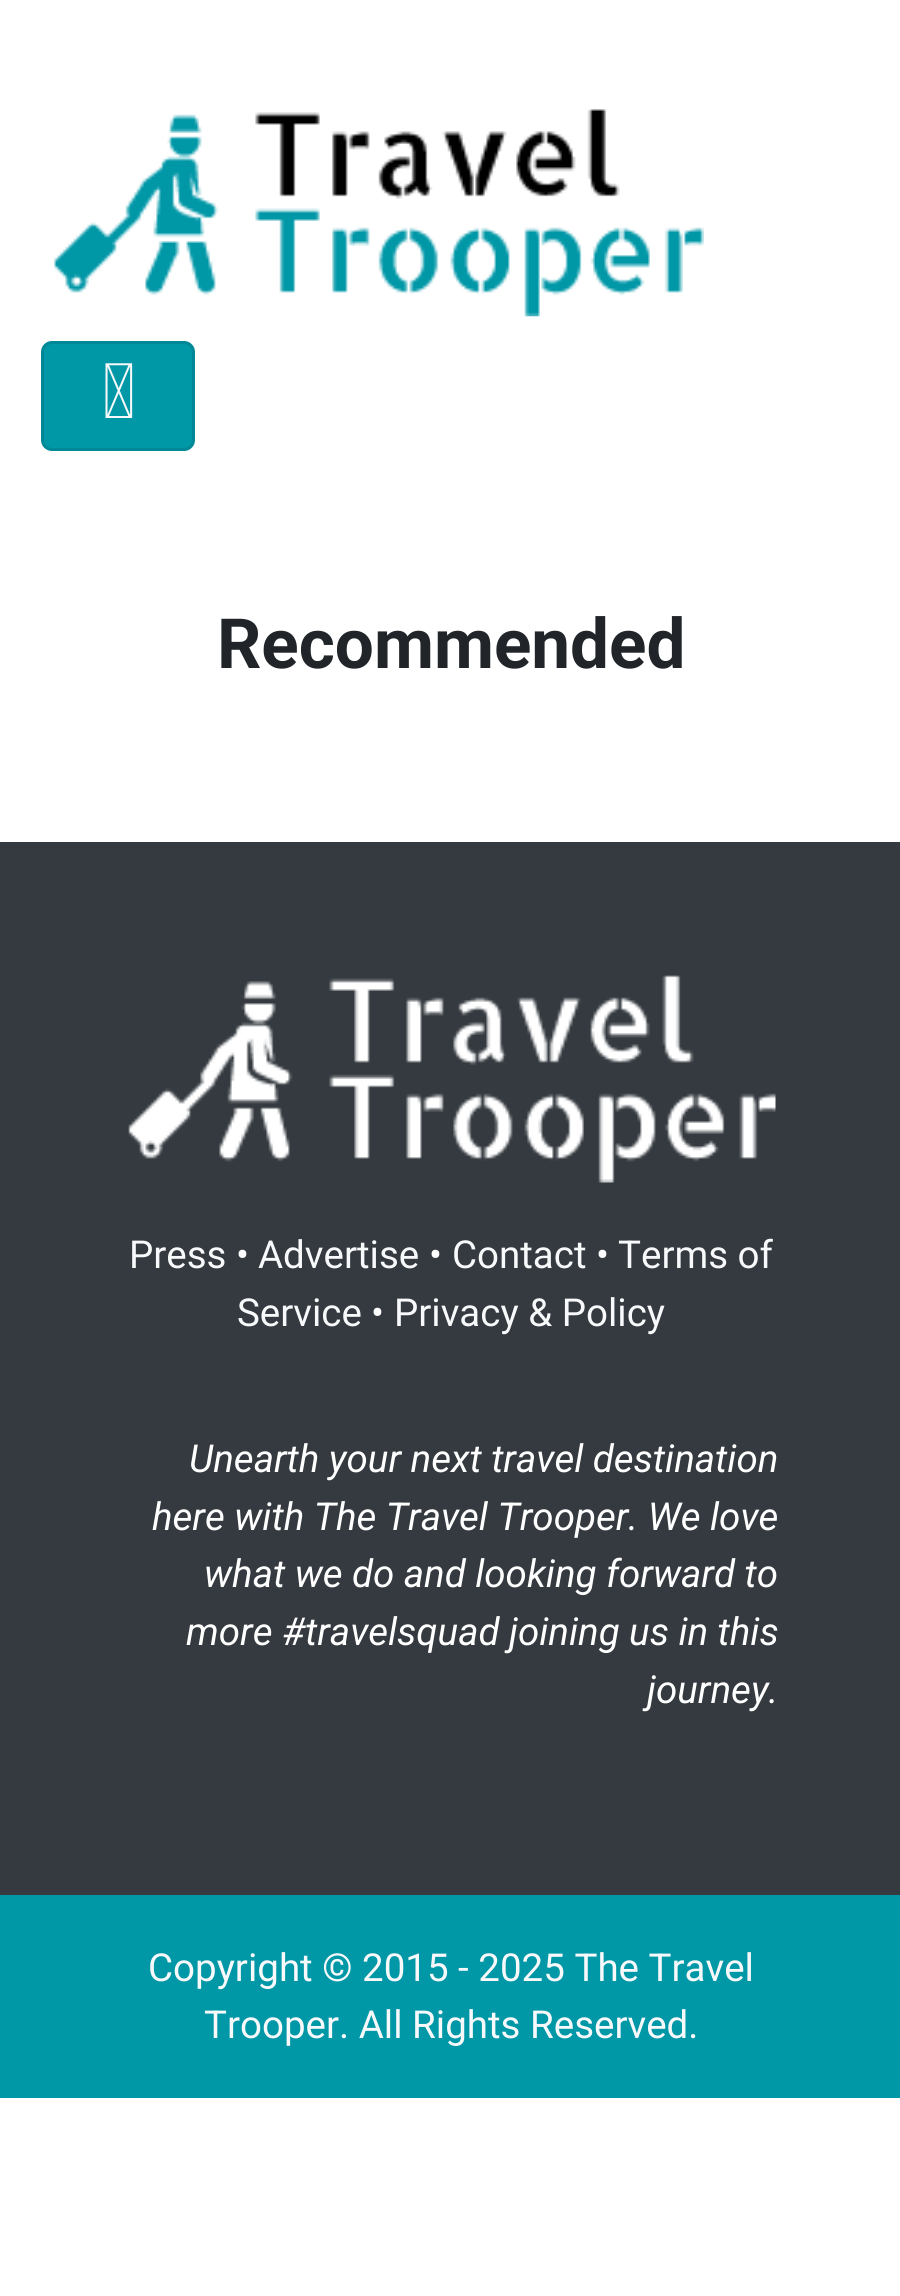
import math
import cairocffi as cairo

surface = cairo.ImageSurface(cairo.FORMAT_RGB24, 900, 2296)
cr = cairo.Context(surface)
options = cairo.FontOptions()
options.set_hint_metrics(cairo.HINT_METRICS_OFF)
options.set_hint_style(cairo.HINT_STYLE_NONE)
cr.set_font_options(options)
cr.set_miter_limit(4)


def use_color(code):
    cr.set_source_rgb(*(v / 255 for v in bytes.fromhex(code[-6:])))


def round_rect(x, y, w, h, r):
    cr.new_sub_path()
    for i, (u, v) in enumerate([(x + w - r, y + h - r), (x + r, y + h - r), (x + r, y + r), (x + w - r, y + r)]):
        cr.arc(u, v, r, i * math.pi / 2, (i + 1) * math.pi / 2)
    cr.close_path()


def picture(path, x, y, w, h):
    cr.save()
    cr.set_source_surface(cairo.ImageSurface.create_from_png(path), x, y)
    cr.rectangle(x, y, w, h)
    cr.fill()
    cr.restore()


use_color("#ffffff")
cr.paint()
picture("img1.png", 54, 109, 650, 208)
use_color("#0097a7")
round_rect(41, 341, 154, 110, 11)
cr.fill()
round_rect(42.5, 342.5, 151, 107, 9.5)
cr.set_source_rgba(0, 0, 0, 0.1)
cr.set_line_width(3)
cr.stroke()
picture("img2.png", 105, 363, 28, 55)
cr.select_font_face("Roboto", cairo.FONT_SLANT_NORMAL, cairo.FONT_WEIGHT_BOLD)
cr.set_font_size(69.25)
use_color("#212529")
cr.move_to(217, 668)
cr.show_text("Recommended")
use_color("#343a40")
cr.rectangle(0, 842, 900, 1053)
cr.fill()
picture("img3.png", 128, 975, 648, 208)
cr.select_font_face("Roboto")
cr.set_font_size(38.5)
use_color("#f8f9fa")
cr.move_to(129, 1268)
cr.show_text("Press")
use_color("#ffffff")
cr.move_to(236, 1268)
cr.show_text("•")
use_color("#f8f9fa")
cr.move_to(258, 1268)
cr.show_text("Advertise")
use_color("#ffffff")
cr.move_to(429, 1268)
cr.show_text("•")
use_color("#f8f9fa")
cr.move_to(452, 1268)
cr.show_text("Contact")
use_color("#ffffff")
cr.move_to(596, 1268)
cr.show_text("•")
use_color("#f8f9fa")
cr.move_to(618, 1268)
cr.show_text("Terms of")
cr.move_to(237, 1326)
cr.show_text("Service")
use_color("#ffffff")
cr.move_to(371, 1326)
cr.show_text("•")
use_color("#f8f9fa")
cr.move_to(394, 1326)
cr.show_text("Privacy & Policy")
cr.select_font_face("Roboto", cairo.FONT_SLANT_ITALIC)
use_color("#ffffff")
cr.move_to(189, 1472)
cr.show_text("Unearth your next travel destination")
cr.move_to(152, 1530)
cr.show_text("here with The Travel Trooper. We love")
cr.move_to(204, 1587)
cr.show_text("what we do and looking forward to")
cr.move_to(186, 1645)
cr.show_text("more #travelsquad joining us in this")
cr.move_to(647, 1703)
cr.show_text("journey.")
use_color("#0097a7")
cr.rectangle(0, 1895, 900, 203)
cr.fill()
cr.select_font_face("Roboto")
use_color("#f8f9fa")
cr.move_to(148, 1981)
cr.show_text("Copyright © 2015 - 2025 The Travel")
cr.move_to(204, 2038)
cr.show_text("Trooper. All Rights Reserved.")
surface.write_to_png("result.png")
